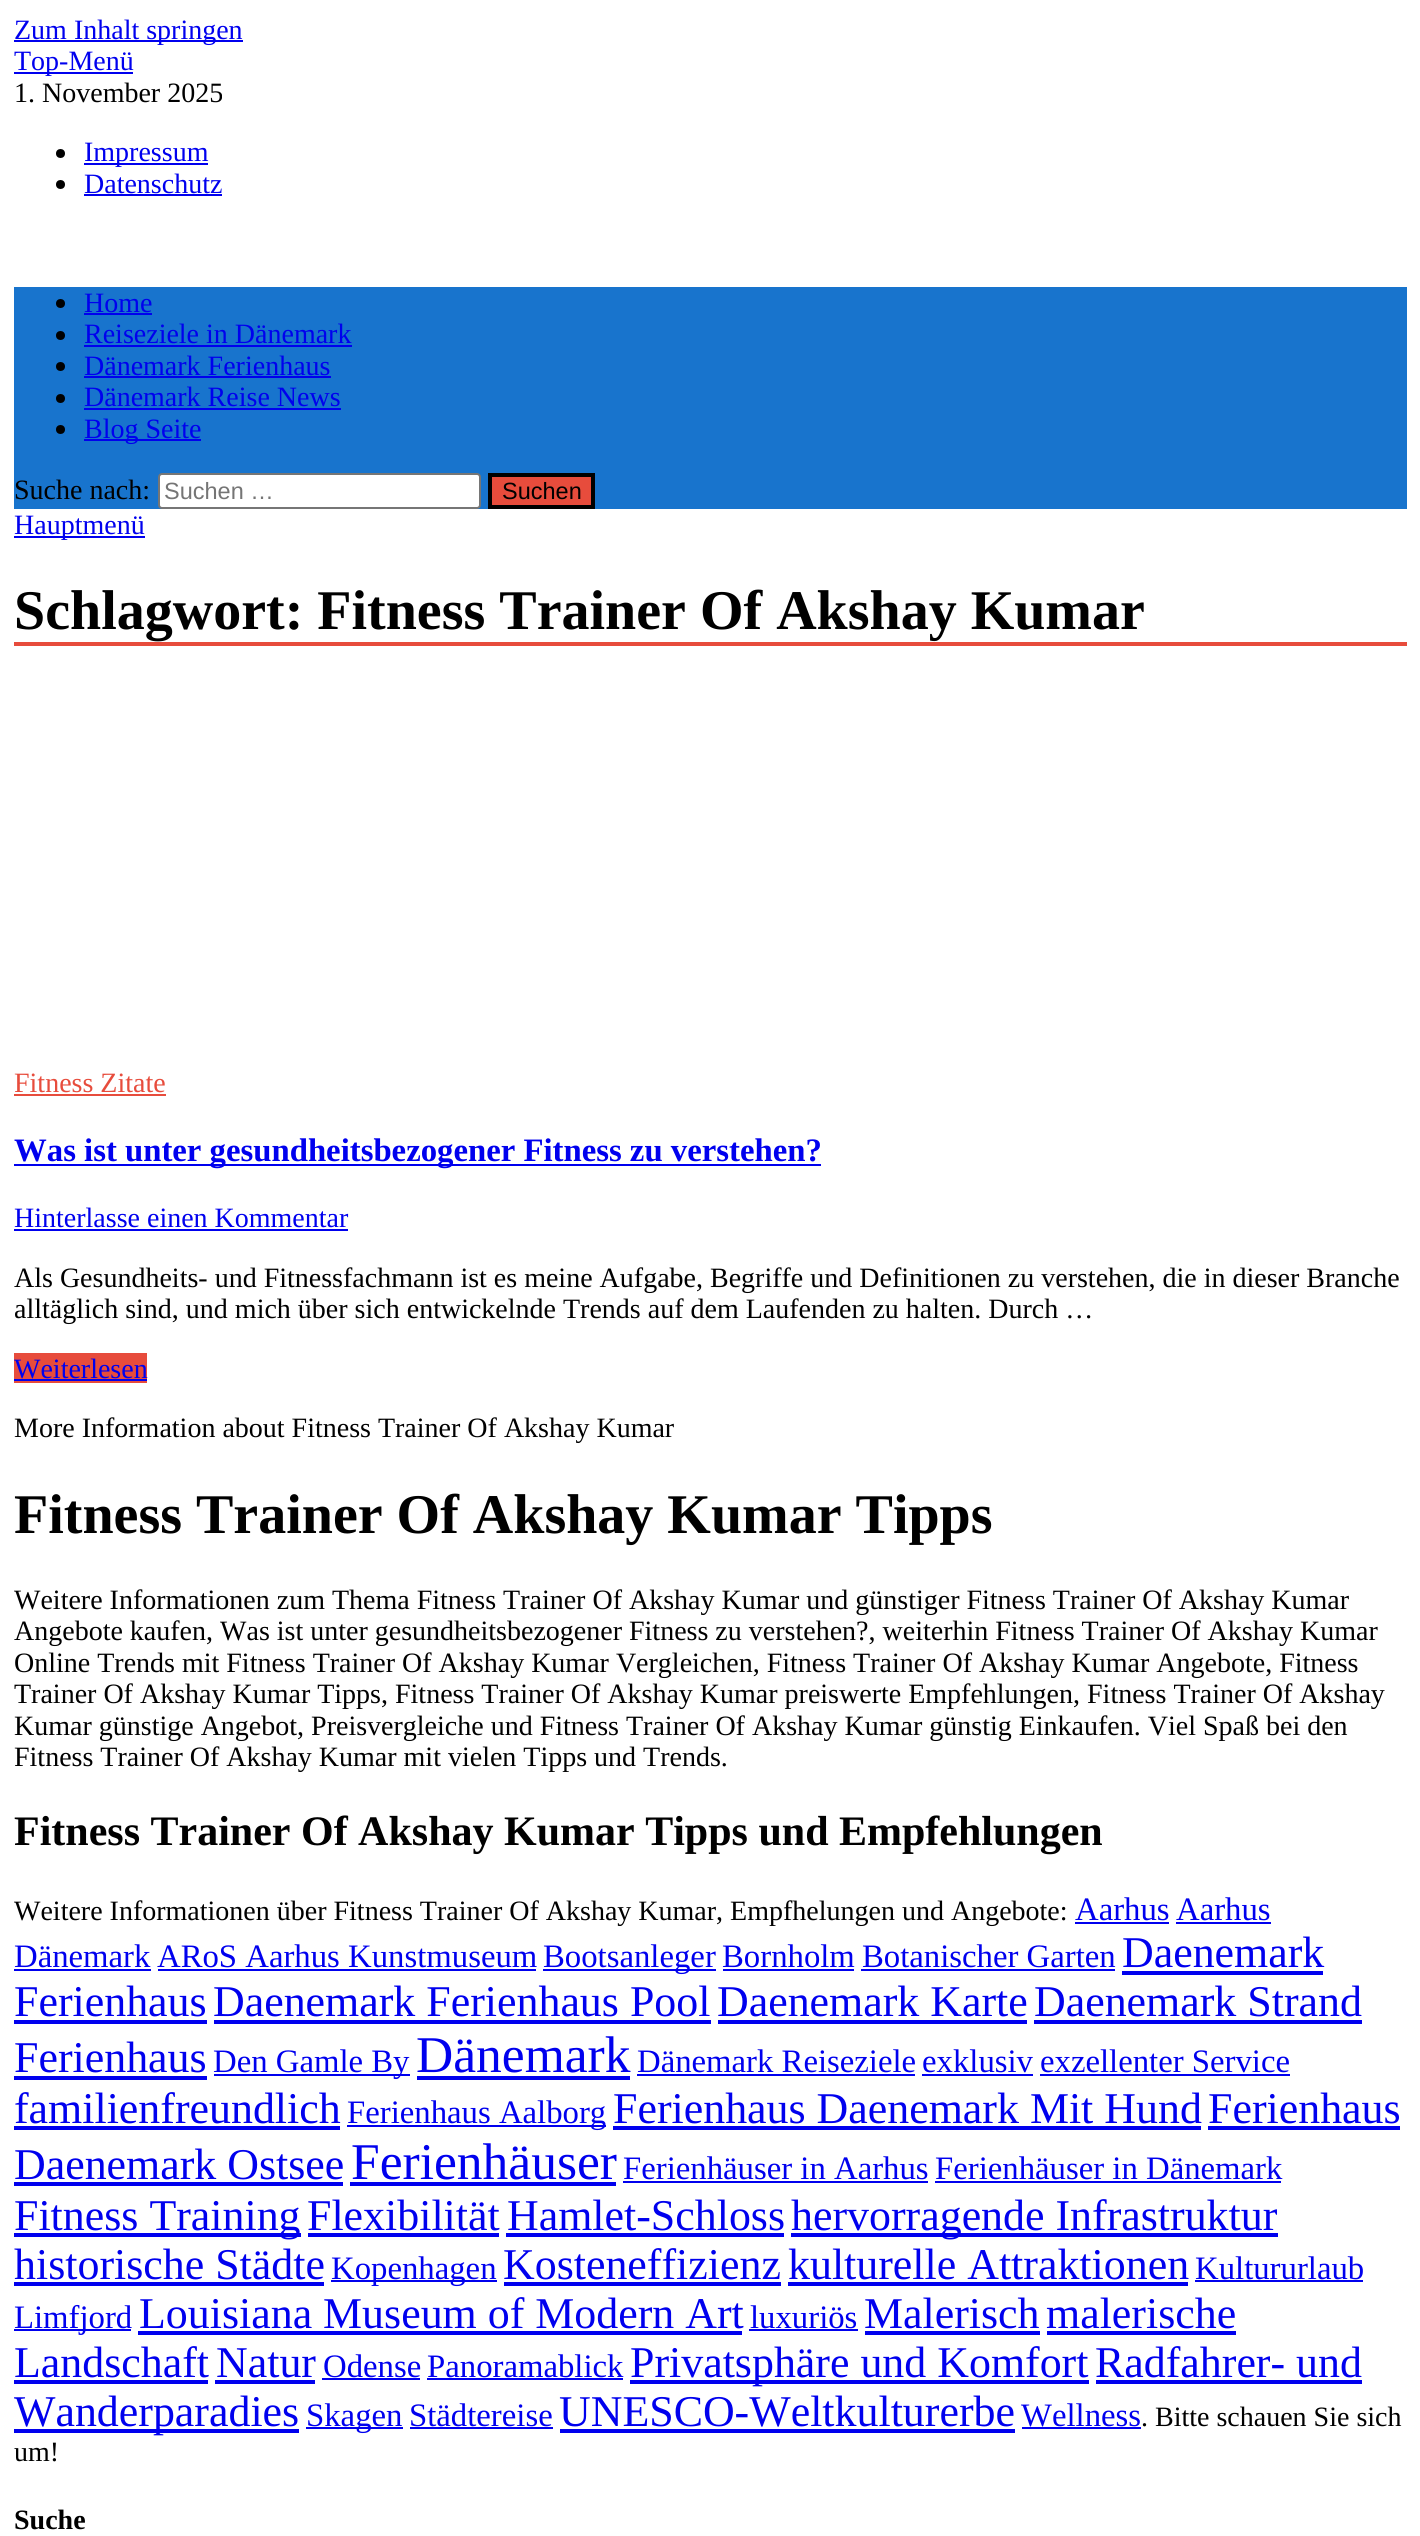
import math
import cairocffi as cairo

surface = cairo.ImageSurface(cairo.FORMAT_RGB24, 1420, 2536)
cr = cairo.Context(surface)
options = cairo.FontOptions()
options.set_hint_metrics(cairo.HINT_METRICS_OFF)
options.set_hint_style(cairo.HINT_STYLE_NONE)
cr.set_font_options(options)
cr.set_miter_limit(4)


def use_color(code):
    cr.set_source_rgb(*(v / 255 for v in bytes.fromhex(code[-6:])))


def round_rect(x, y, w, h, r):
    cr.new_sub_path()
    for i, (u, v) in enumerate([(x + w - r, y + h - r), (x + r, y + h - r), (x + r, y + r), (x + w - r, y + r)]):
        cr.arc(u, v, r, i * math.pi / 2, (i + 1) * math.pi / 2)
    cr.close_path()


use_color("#ffffff")
cr.paint()
use_color("#0000ee")
cr.rectangle(14, 40, 229, 2)
cr.fill()
cr.select_font_face("Liberation Serif")
cr.set_font_size(28)
cr.move_to(14, 39)
cr.show_text("Zum Inhalt springen")
cr.rectangle(14, 72, 119, 2)
cr.fill()
cr.move_to(14, 70)
cr.show_text("Top-Menü")
use_color("#000000")
cr.move_to(14, 102)
cr.show_text("1. November 2025")
cr.new_path()
cr.arc(60.5, 153.5, 4.5, 0, 2 * math.pi)
cr.fill()
use_color("#0000ee")
cr.rectangle(84, 163, 124, 2)
cr.fill()
cr.move_to(84, 161)
cr.show_text("Impressum")
use_color("#000000")
cr.new_path()
cr.arc(60.5, 184.5, 4.5, 0, 2 * math.pi)
cr.fill()
use_color("#0000ee")
cr.move_to(84, 193)
cr.show_text("Datenschutz")
cr.rectangle(84, 194, 138, 2)
cr.fill()
use_color("#1874cd")
cr.rectangle(14, 287, 1393, 222)
cr.fill()
use_color("#000000")
cr.arc(60.5, 303.5, 4.5, 0, 2 * math.pi)
cr.fill()
use_color("#0000ee")
cr.move_to(84, 312)
cr.show_text("Home")
cr.rectangle(84, 313, 68, 2)
cr.fill()
use_color("#000000")
cr.arc(60.5, 335.5, 4.5, 0, 2 * math.pi)
cr.fill()
use_color("#0000ee")
cr.move_to(84, 343)
cr.show_text("Reiseziele in Dänemark")
cr.rectangle(84, 345, 268, 2)
cr.fill()
use_color("#000000")
cr.arc(60.5, 366.5, 4.5, 0, 2 * math.pi)
cr.fill()
use_color("#0000ee")
cr.move_to(84, 375)
cr.show_text("Dänemark Ferienhaus")
cr.rectangle(84, 376, 247, 2)
cr.fill()
use_color("#000000")
cr.arc(60.5, 398.5, 4.5, 0, 2 * math.pi)
cr.fill()
use_color("#0000ee")
cr.move_to(84, 406)
cr.show_text("Dänemark Reise News")
cr.rectangle(84, 408, 257, 2)
cr.fill()
use_color("#000000")
cr.arc(60.5, 429.5, 4.5, 0, 2 * math.pi)
cr.fill()
use_color("#0000ee")
cr.rectangle(84, 439, 117, 2)
cr.fill()
cr.move_to(84, 438)
cr.show_text("Blog Seite")
use_color("#000000")
cr.move_to(14, 499)
cr.show_text("Suche nach:")
use_color("#ffffff")
round_rect(159, 474, 321, 34, 3)
cr.fill_preserve()
use_color("#767676")
cr.stroke()
cr.select_font_face("Liberation Sans")
cr.set_font_size(23.5)
use_color("#757575")
cr.move_to(164, 499)
cr.show_text("Suchen …")
use_color("#e74c3c")
cr.rectangle(490, 475, 103, 32)
cr.fill_preserve()
use_color("#000000")
cr.set_line_width(4)
cr.stroke()
cr.move_to(502, 499)
cr.show_text("Suchen")
use_color("#0000ee")
cr.rectangle(14, 536, 131, 2)
cr.fill()
cr.select_font_face("Liberation Serif")
cr.set_font_size(28)
cr.move_to(14, 534)
cr.show_text("Hauptmenü")
use_color("#e74c3c")
cr.rectangle(14, 642, 1393, 4)
cr.fill()
cr.select_font_face("Liberation Serif", cairo.FONT_SLANT_NORMAL, cairo.FONT_WEIGHT_BOLD)
cr.set_font_size(56)
use_color("#000000")
cr.move_to(14, 629)
cr.show_text("Schlagwort: Fitness Trainer Of Akshay Kumar")
cr.select_font_face("Liberation Serif")
cr.set_font_size(28)
use_color("#e74c3c")
cr.move_to(14, 1092)
cr.show_text("Fitness Zitate")
cr.rectangle(14, 1094, 152, 2)
cr.fill()
use_color("#0000ee")
cr.rectangle(14, 1164, 807, 2)
cr.fill()
cr.select_font_face("Liberation Serif", cairo.FONT_SLANT_NORMAL, cairo.FONT_WEIGHT_BOLD)
cr.set_font_size(32.75)
cr.move_to(14, 1161)
cr.show_text("Was ist unter gesundheitsbezogener Fitness zu verstehen?")
cr.select_font_face("Liberation Serif")
cr.set_font_size(28)
cr.move_to(14, 1227)
cr.show_text("Hinterlasse einen Kommentar")
cr.rectangle(14, 1229, 334, 2)
cr.fill()
use_color("#000000")
cr.move_to(14, 1287)
cr.show_text("Als Gesundheits- und Fitnessfachmann ist es meine Aufgabe, Begriffe und Definitionen zu verstehen, die in dieser Branche")
cr.move_to(14, 1318)
cr.show_text("alltäglich sind, und mich über sich entwickelnde Trends auf dem Laufenden zu halten. Durch …")
use_color("#e74c3c")
cr.rectangle(14, 1353, 133, 30)
cr.fill()
use_color("#0000ee")
cr.move_to(14, 1378)
cr.show_text("Weiterlesen")
cr.rectangle(14, 1379, 133, 2)
cr.fill()
use_color("#000000")
cr.move_to(14, 1437)
cr.show_text("More Information about Fitness Trainer Of Akshay Kumar")
cr.select_font_face("Liberation Serif", cairo.FONT_SLANT_NORMAL, cairo.FONT_WEIGHT_BOLD)
cr.set_font_size(56)
cr.move_to(14, 1533)
cr.show_text("Fitness Trainer Of Akshay Kumar Tipps")
cr.select_font_face("Liberation Serif")
cr.set_font_size(28)
cr.move_to(14, 1609)
cr.show_text("Weitere Informationen zum Thema Fitness Trainer Of Akshay Kumar und günstiger Fitness Trainer Of Akshay Kumar")
cr.move_to(14, 1640)
cr.show_text("Angebote kaufen, Was ist unter gesundheitsbezogener Fitness zu verstehen?, weiterhin Fitness Trainer Of Akshay Kumar")
cr.move_to(14, 1672)
cr.show_text("Online Trends mit Fitness Trainer Of Akshay Kumar Vergleichen, Fitness Trainer Of Akshay Kumar Angebote, Fitness")
cr.move_to(14, 1703)
cr.show_text("Trainer Of Akshay Kumar Tipps, Fitness Trainer Of Akshay Kumar preiswerte Empfehlungen, Fitness Trainer Of Akshay")
cr.move_to(14, 1735)
cr.show_text("Kumar günstige Angebot, Preisvergleiche und Fitness Trainer Of Akshay Kumar günstig Einkaufen. Viel Spaß bei den")
cr.move_to(14, 1766)
cr.show_text("Fitness Trainer Of Akshay Kumar mit vielen Tipps und Trends.")
cr.select_font_face("Liberation Serif", cairo.FONT_SLANT_NORMAL, cairo.FONT_WEIGHT_BOLD)
cr.set_font_size(42)
cr.move_to(14, 1845)
cr.show_text("Fitness Trainer Of Akshay Kumar Tipps und Empfehlungen")
cr.select_font_face("Liberation Serif")
cr.set_font_size(28)
cr.move_to(14, 1920)
cr.show_text("Weitere Informationen über Fitness Trainer Of Akshay Kumar, Empfhelungen und Angebote:")
cr.set_font_size(32.75)
use_color("#0000ee")
cr.move_to(1075, 1920)
cr.show_text("Aarhus")
cr.rectangle(1075, 1922, 94, 2)
cr.fill()
cr.move_to(1176, 1920)
cr.show_text("Aarhus")
cr.rectangle(1176, 1922, 95, 2)
cr.fill()
cr.move_to(14, 1967)
cr.show_text("Dänemark")
cr.rectangle(14, 1969, 137, 2)
cr.fill()
cr.move_to(157, 1967)
cr.show_text("ARoS Aarhus Kunstmuseum")
cr.rectangle(158, 1969, 378, 2)
cr.fill()
cr.rectangle(543, 1969, 173, 2)
cr.fill()
cr.move_to(543, 1967)
cr.show_text("Bootsanleger")
cr.move_to(722, 1967)
cr.show_text("Bornholm")
cr.rectangle(723, 1969, 131, 2)
cr.fill()
cr.move_to(862, 1967)
cr.show_text("Botanischer Garten")
cr.rectangle(861, 1969, 254, 2)
cr.fill()
cr.set_font_size(43.9)
cr.move_to(1122, 1967)
cr.show_text("Daenemark")
cr.rectangle(1122, 1971, 201, 4)
cr.fill()
cr.move_to(14, 2016)
cr.show_text("Ferienhaus")
cr.rectangle(14, 2020, 193, 4)
cr.fill()
cr.move_to(213, 2016)
cr.show_text("Daenemark Ferienhaus Pool")
cr.rectangle(214, 2020, 497, 4)
cr.fill()
cr.move_to(717, 2016)
cr.show_text("Daenemark Karte")
cr.rectangle(718, 2020, 309, 4)
cr.fill()
cr.move_to(1034, 2016)
cr.show_text("Daenemark Strand")
cr.rectangle(1034, 2020, 328, 4)
cr.fill()
cr.move_to(14, 2072)
cr.show_text("Ferienhaus")
cr.rectangle(14, 2076, 193, 4)
cr.fill()
cr.rectangle(214, 2074, 196, 2)
cr.fill()
cr.set_font_size(32.75)
cr.move_to(213, 2072)
cr.show_text("Den Gamle By")
cr.set_font_size(51.5)
cr.move_to(416, 2072)
cr.show_text("Dänemark")
cr.rectangle(417, 2076, 213, 4)
cr.fill()
cr.set_font_size(32.75)
cr.move_to(637, 2072)
cr.show_text("Dänemark Reiseziele")
cr.rectangle(637, 2074, 278, 2)
cr.fill()
cr.move_to(922, 2072)
cr.show_text("exklusiv")
cr.rectangle(922, 2074, 111, 2)
cr.fill()
cr.move_to(1040, 2072)
cr.show_text("exzellenter Service")
cr.rectangle(1040, 2074, 250, 2)
cr.fill()
cr.set_font_size(43.9)
cr.move_to(14, 2123)
cr.show_text("familienfreundlich")
cr.rectangle(14, 2126, 326, 4)
cr.fill()
cr.rectangle(347, 2125, 259, 2)
cr.fill()
cr.set_font_size(32.75)
cr.move_to(347, 2123)
cr.show_text("Ferienhaus Aalborg")
cr.set_font_size(43.9)
cr.move_to(613, 2123)
cr.show_text("Ferienhaus Daenemark Mit Hund")
cr.rectangle(613, 2126, 588, 4)
cr.fill()
cr.move_to(1208, 2123)
cr.show_text("Ferienhaus")
cr.rectangle(1208, 2126, 192, 4)
cr.fill()
cr.move_to(14, 2179)
cr.show_text("Daenemark Ostsee")
cr.rectangle(14, 2182, 329, 4)
cr.fill()
cr.set_font_size(51.5)
cr.move_to(351, 2179)
cr.show_text("Ferienhäuser")
cr.rectangle(350, 2182, 266, 4)
cr.fill()
cr.set_font_size(32.75)
cr.move_to(623, 2179)
cr.show_text("Ferienhäuser in Aarhus")
cr.rectangle(623, 2181, 305, 2)
cr.fill()
cr.move_to(935, 2179)
cr.show_text("Ferienhäuser in Dänemark")
cr.rectangle(935, 2181, 346, 2)
cr.fill()
cr.rectangle(14, 2233, 287, 4)
cr.fill()
cr.set_font_size(43.9)
cr.move_to(14, 2230)
cr.show_text("Fitness Training")
cr.move_to(307, 2230)
cr.show_text("Flexibilität")
cr.rectangle(308, 2233, 191, 4)
cr.fill()
cr.move_to(507, 2230)
cr.show_text("Hamlet-Schloss")
cr.rectangle(506, 2233, 278, 4)
cr.fill()
cr.rectangle(791, 2233, 487, 4)
cr.fill()
cr.move_to(791, 2230)
cr.show_text("hervorragende Infrastruktur")
cr.move_to(14, 2279)
cr.show_text("historische Städte")
cr.rectangle(14, 2282, 310, 4)
cr.fill()
cr.rectangle(331, 2280, 166, 2)
cr.fill()
cr.set_font_size(32.75)
cr.move_to(331, 2279)
cr.show_text("Kopenhagen")
cr.set_font_size(43.9)
cr.move_to(503, 2279)
cr.show_text("Kosteneffizienz")
cr.rectangle(504, 2282, 277, 4)
cr.fill()
cr.move_to(788, 2279)
cr.show_text("kulturelle Attraktionen")
cr.rectangle(788, 2282, 400, 4)
cr.fill()
cr.set_font_size(32.75)
cr.move_to(1195, 2279)
cr.show_text("Kultururlaub")
cr.rectangle(1195, 2280, 168, 2)
cr.fill()
cr.rectangle(14, 2329, 117, 2)
cr.fill()
cr.move_to(14, 2328)
cr.show_text("Limfjord")
cr.set_font_size(43.9)
cr.move_to(139, 2328)
cr.show_text("Louisiana Museum of Modern Art")
cr.rectangle(138, 2331, 604, 4)
cr.fill()
cr.set_font_size(32.75)
cr.move_to(750, 2328)
cr.show_text("luxuriös")
cr.rectangle(749, 2329, 109, 2)
cr.fill()
cr.set_font_size(43.9)
cr.move_to(864, 2328)
cr.show_text("Malerisch")
cr.rectangle(865, 2331, 175, 4)
cr.fill()
cr.move_to(1046, 2328)
cr.show_text("malerische")
cr.rectangle(1047, 2331, 189, 4)
cr.fill()
cr.move_to(14, 2377)
cr.show_text("Landschaft")
cr.rectangle(14, 2380, 194, 4)
cr.fill()
cr.move_to(216, 2377)
cr.show_text("Natur")
cr.rectangle(215, 2380, 100, 4)
cr.fill()
cr.set_font_size(32.75)
cr.move_to(323, 2377)
cr.show_text("Odense")
cr.rectangle(322, 2378, 98, 2)
cr.fill()
cr.move_to(427, 2377)
cr.show_text("Panoramablick")
cr.rectangle(427, 2378, 196, 2)
cr.fill()
cr.rectangle(630, 2380, 459, 4)
cr.fill()
cr.set_font_size(43.9)
cr.move_to(630, 2377)
cr.show_text("Privatsphäre und Komfort")
cr.move_to(1095, 2377)
cr.show_text("Radfahrer- und")
cr.rectangle(1096, 2380, 266, 4)
cr.fill()
cr.rectangle(14, 2429, 285, 4)
cr.fill()
cr.move_to(14, 2426)
cr.show_text("Wanderparadies")
cr.rectangle(306, 2427, 97, 2)
cr.fill()
cr.set_font_size(32.75)
cr.move_to(306, 2426)
cr.show_text("Skagen")
cr.move_to(409, 2426)
cr.show_text("Städtereise")
cr.rectangle(410, 2427, 143, 2)
cr.fill()
cr.set_font_size(43.9)
cr.move_to(559, 2426)
cr.show_text("UNESCO-Weltkulturerbe")
cr.rectangle(560, 2429, 455, 4)
cr.fill()
cr.set_font_size(32.75)
cr.move_to(1021, 2426)
cr.show_text("Wellness")
cr.rectangle(1022, 2427, 119, 2)
cr.fill()
cr.set_font_size(28)
use_color("#000000")
cr.move_to(1141, 2426)
cr.show_text(". Bitte schauen Sie sich")
cr.move_to(14, 2461)
cr.show_text("um!")
cr.select_font_face("Liberation Serif", cairo.FONT_SLANT_NORMAL, cairo.FONT_WEIGHT_BOLD)
cr.move_to(14, 2529)
cr.show_text("Suche")
surface.write_to_png("result.png")
